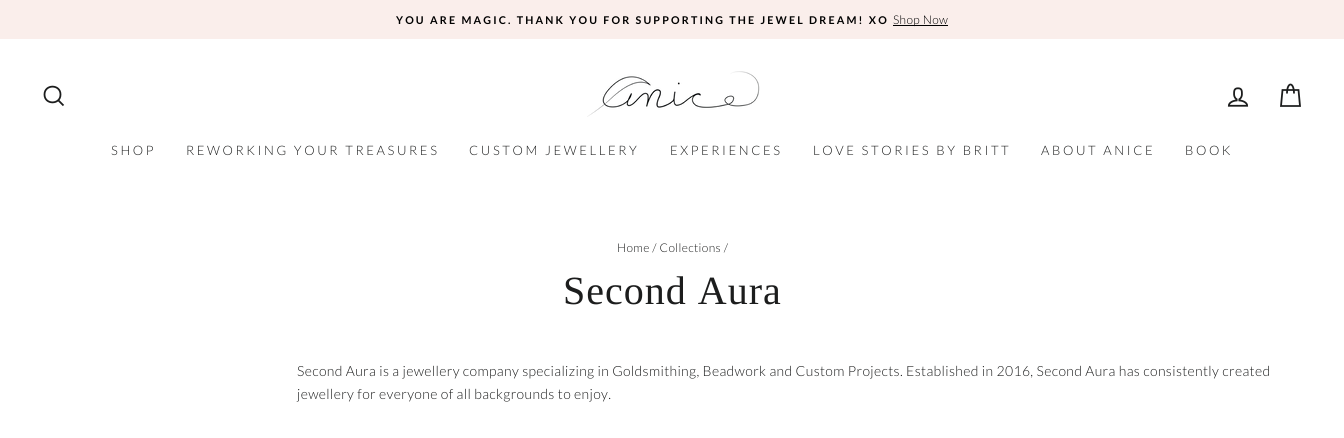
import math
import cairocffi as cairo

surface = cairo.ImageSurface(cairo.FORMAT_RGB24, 1344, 438)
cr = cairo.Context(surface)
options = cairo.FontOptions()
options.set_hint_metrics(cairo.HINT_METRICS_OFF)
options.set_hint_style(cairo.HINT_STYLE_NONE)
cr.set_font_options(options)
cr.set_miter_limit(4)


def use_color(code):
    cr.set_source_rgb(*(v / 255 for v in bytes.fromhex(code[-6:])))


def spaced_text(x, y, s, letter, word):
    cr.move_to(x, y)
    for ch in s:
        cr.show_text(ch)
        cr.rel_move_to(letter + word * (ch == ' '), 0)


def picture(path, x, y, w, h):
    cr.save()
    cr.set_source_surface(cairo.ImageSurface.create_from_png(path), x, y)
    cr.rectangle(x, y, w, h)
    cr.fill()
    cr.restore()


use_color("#ffffff")
cr.paint()
use_color("#faeeeb")
cr.rectangle(0, 0, 1344, 39)
cr.fill()
cr.select_font_face("Lato", cairo.FONT_SLANT_NORMAL, cairo.FONT_WEIGHT_BOLD)
cr.set_font_size(10.7)
use_color("#000000")
spaced_text(396, 24, "YOU ARE MAGIC. THANK YOU FOR SUPPORTING THE JEWEL DREAM! XO", 2.15, 0)
cr.rectangle(893, 25, 55, 1)
cr.fill()
cr.select_font_face("Lato Light")
cr.set_font_size(12)
spaced_text(893, 24, "Shop Now", 0.35, 0)
cr.new_path()
cr.move_to(60.5, 94.5)
cr.curve_to(60.5, 105, 44.5, 105, 44.5, 94.5)
cr.curve_to(44.5, 84, 60.5, 84, 60.5, 94.5)
cr.close_path()
cr.move_to(63.5, 105.5)
cr.line_to(58.5, 100.5)
use_color("#1c1d1d")
cr.set_line_width(1.8)
cr.stroke()
picture("img1.png", 587, 71, 173, 46)
picture("img2.png", 1227, 87, 22, 20)
cr.new_path()
cr.move_to(1287, 93.5)
cr.curve_to(1287, 81.5, 1294, 81.5, 1294, 93.5)
cr.move_to(1282.5, 90)
cr.line_to(1298.5, 90)
cr.line_to(1300, 106)
cr.line_to(1281, 106)
cr.close_path()
cr.stroke()
cr.set_font_size(13)
spaced_text(111, 155, "SHOP", 2.6, 0)
spaced_text(186, 155, "REWORKING YOUR TREASURES", 2.6, 0)
spaced_text(469, 155, "CUSTOM JEWELLERY", 2.6, 0)
spaced_text(670, 155, "EXPERIENCES", 2.6, 0)
spaced_text(813, 155, "LOVE STORIES BY BRITT", 2.6, 0)
spaced_text(1041, 155, "ABOUT ANICE", 2.6, 0)
spaced_text(1185, 155, "BOOK", 2.6, 0)
cr.set_font_size(12)
spaced_text(617, 252, "Home / Collections /", 0.35, 0)
cr.select_font_face("Liberation Serif")
cr.set_font_size(40)
spaced_text(563, 304, "Second Aura", 1, 0)
cr.select_font_face("Lato Light")
cr.set_font_size(14)
spaced_text(297, 376, "Second Aura is a jewellery company specializing in Goldsmithing, Beadwork and Custom Projects. Established in 2016, Second Aura has consistently created", 0.35, 0)
spaced_text(297, 399, "jewellery for everyone of all backgrounds to enjoy.", 0.35, 0)
surface.write_to_png("result.png")
